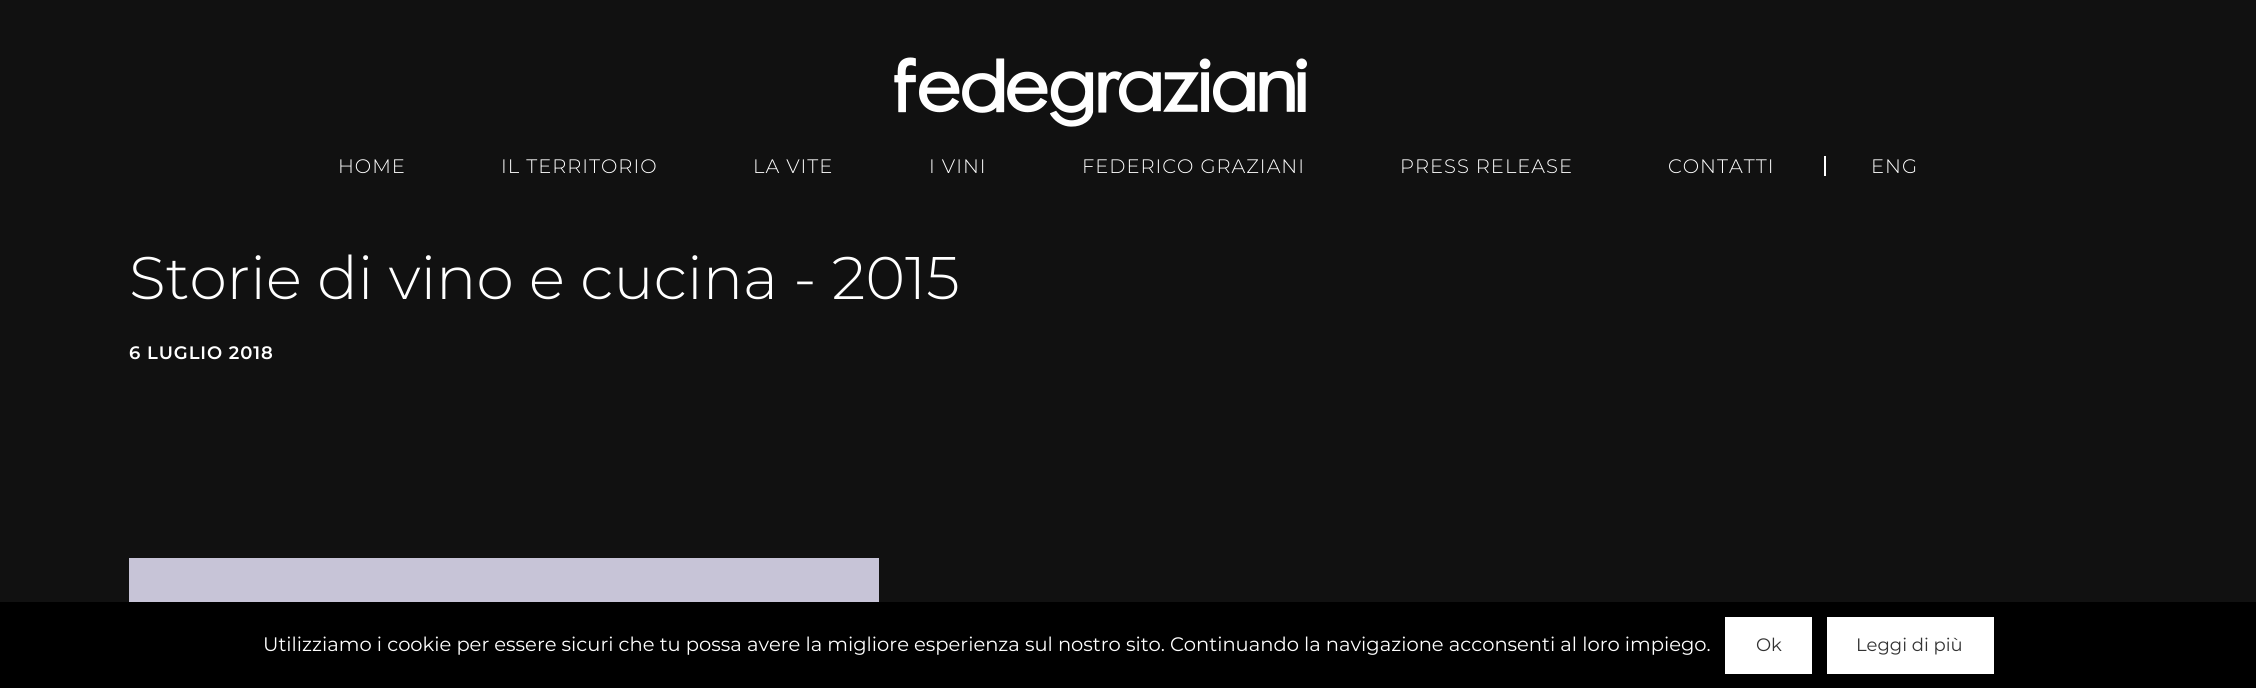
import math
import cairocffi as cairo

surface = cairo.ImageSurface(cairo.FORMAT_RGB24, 2256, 688)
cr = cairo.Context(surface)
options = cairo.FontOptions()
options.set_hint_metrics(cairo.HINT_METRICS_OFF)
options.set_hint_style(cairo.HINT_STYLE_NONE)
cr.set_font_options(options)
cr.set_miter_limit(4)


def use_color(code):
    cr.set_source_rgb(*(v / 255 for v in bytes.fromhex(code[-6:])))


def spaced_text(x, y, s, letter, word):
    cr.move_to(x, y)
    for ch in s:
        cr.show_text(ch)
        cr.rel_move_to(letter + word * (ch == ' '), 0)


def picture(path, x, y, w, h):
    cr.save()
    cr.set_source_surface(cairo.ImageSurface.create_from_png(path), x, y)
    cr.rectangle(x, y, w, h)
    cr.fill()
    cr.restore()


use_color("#111111")
cr.paint()
picture("img1.png", 894, 57, 413, 70)
cr.select_font_face("Montserrat Light")
cr.set_font_size(19.5)
use_color("#ffffff")
spaced_text(338, 173, "HOME", 1, 0)
spaced_text(501, 173, "IL TERRITORIO", 1, 0)
spaced_text(753, 173, "LA VITE", 1, 0)
spaced_text(929, 173, "I VINI", 1, 0)
spaced_text(1082, 173, "FEDERICO GRAZIANI", 1, 0)
spaced_text(1400, 173, "PRESS RELEASE", 1, 0)
spaced_text(1668, 173, "CONTATTI", 1, 0)
cr.rectangle(1824, 156, 2, 20)
cr.fill()
spaced_text(1871, 173, "ENG", 1, 0)
cr.set_font_size(60)
cr.move_to(129, 299)
cr.show_text("Storie di vino e cucina - 2015")
cr.select_font_face("Montserrat SemiBold")
cr.set_font_size(18)
spaced_text(129, 359, "6 LUGLIO 2018", 0.9, 0)
use_color("#c7c4d7")
cr.rectangle(129, 558, 750, 44)
cr.fill()
use_color("#000000")
cr.rectangle(0, 602, 2256, 86)
cr.fill()
cr.select_font_face("Montserrat")
cr.set_font_size(19.5)
use_color("#ffffff")
cr.move_to(263, 651)
cr.show_text("Utilizziamo i cookie per essere sicuri che tu possa avere la migliore esperienza sul nostro sito. Continuando la navigazione acconsenti al loro impiego.")
cr.rectangle(1725, 617, 87, 57)
cr.fill()
cr.set_font_size(18)
use_color("#333333")
cr.move_to(1756, 651)
cr.show_text("Ok")
use_color("#ffffff")
cr.rectangle(1827, 617, 167, 57)
cr.fill()
use_color("#333333")
cr.move_to(1856, 651)
cr.show_text("Leggi di più")
surface.write_to_png("result.png")
